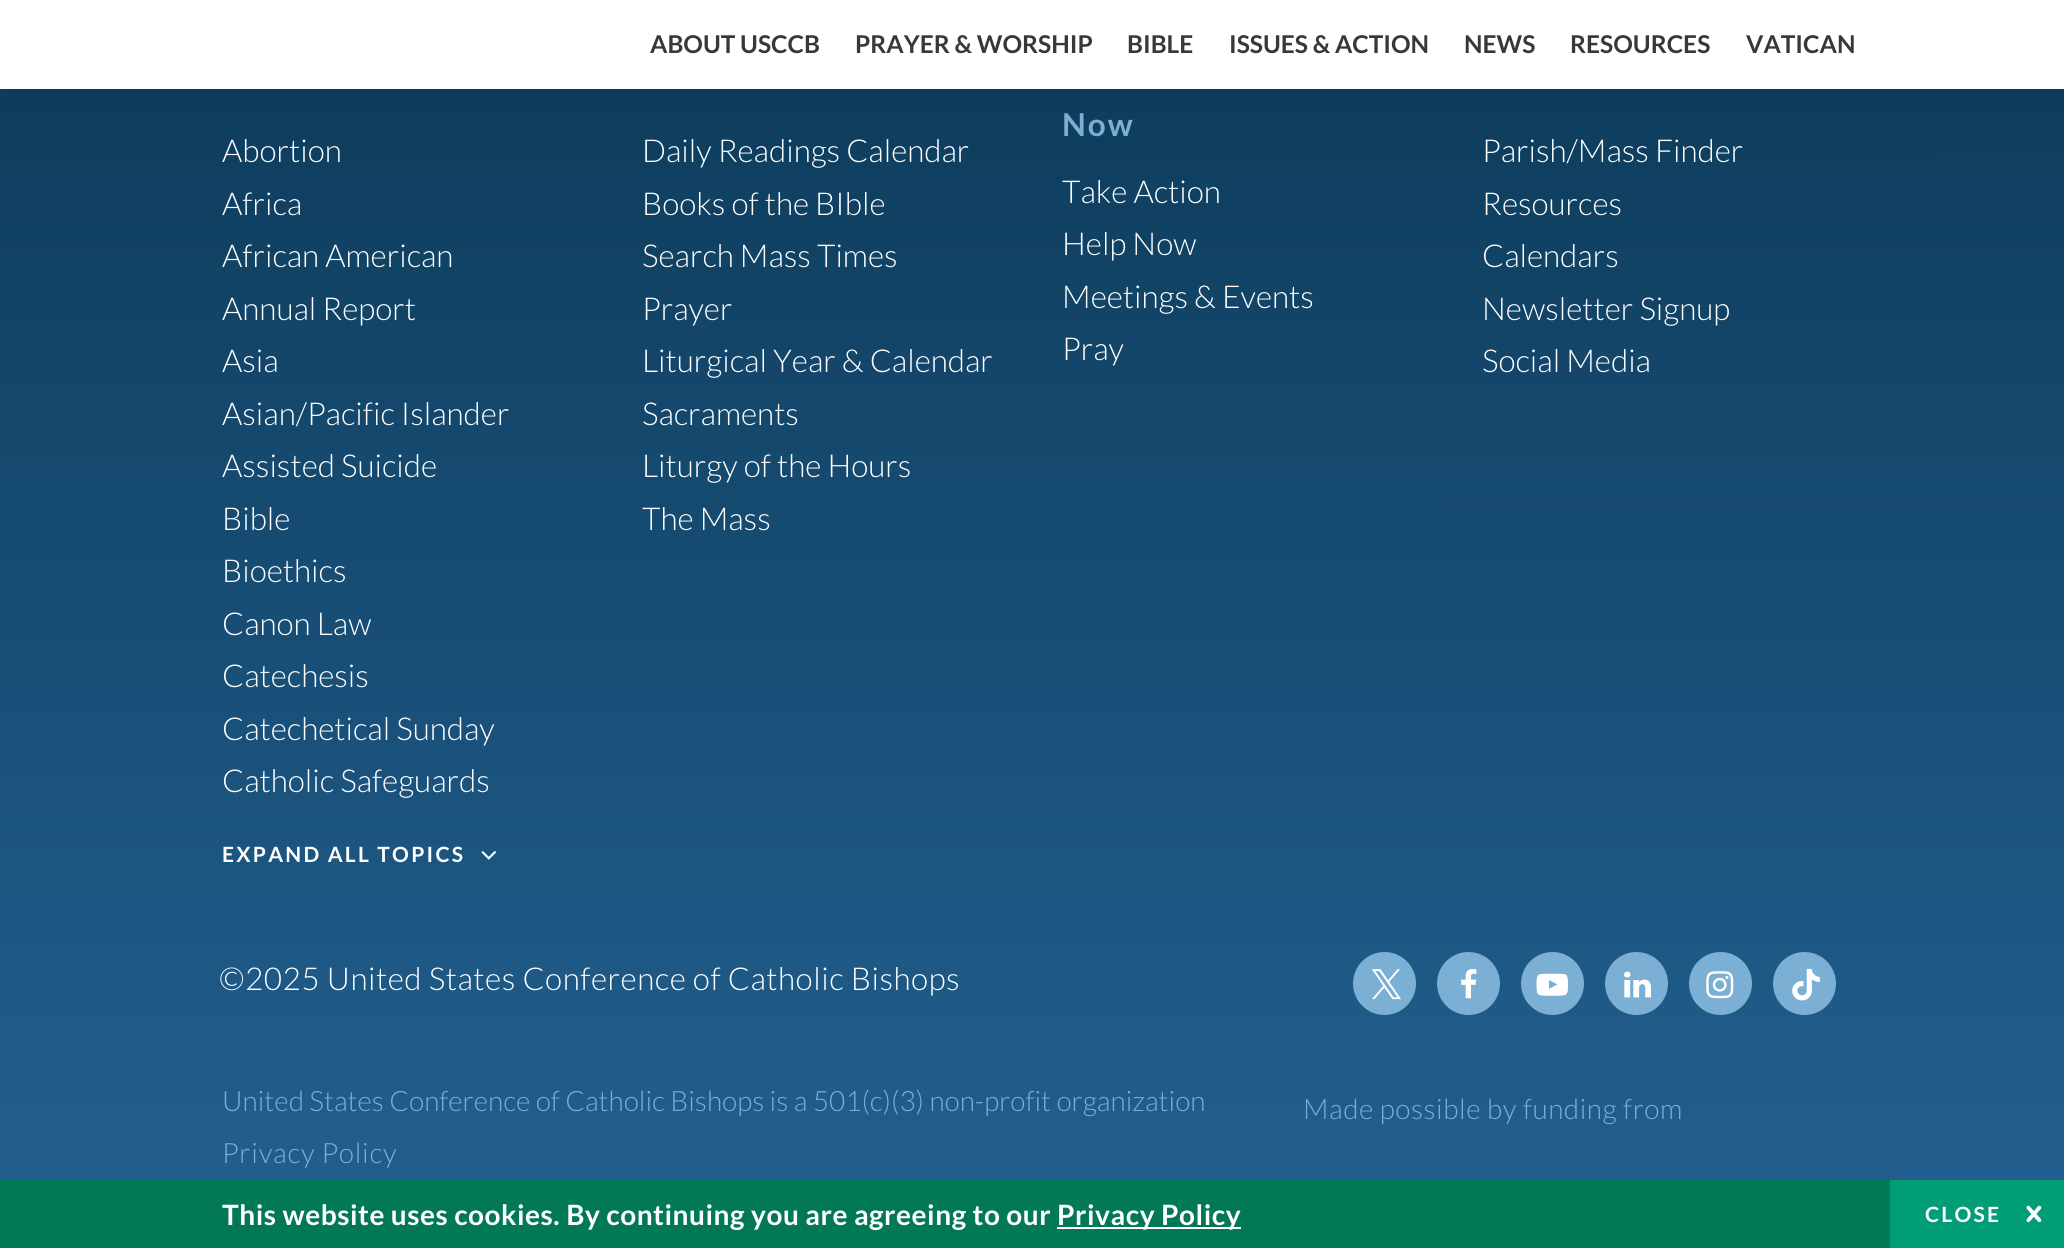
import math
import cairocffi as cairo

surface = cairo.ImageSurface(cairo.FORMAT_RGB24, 2064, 1248)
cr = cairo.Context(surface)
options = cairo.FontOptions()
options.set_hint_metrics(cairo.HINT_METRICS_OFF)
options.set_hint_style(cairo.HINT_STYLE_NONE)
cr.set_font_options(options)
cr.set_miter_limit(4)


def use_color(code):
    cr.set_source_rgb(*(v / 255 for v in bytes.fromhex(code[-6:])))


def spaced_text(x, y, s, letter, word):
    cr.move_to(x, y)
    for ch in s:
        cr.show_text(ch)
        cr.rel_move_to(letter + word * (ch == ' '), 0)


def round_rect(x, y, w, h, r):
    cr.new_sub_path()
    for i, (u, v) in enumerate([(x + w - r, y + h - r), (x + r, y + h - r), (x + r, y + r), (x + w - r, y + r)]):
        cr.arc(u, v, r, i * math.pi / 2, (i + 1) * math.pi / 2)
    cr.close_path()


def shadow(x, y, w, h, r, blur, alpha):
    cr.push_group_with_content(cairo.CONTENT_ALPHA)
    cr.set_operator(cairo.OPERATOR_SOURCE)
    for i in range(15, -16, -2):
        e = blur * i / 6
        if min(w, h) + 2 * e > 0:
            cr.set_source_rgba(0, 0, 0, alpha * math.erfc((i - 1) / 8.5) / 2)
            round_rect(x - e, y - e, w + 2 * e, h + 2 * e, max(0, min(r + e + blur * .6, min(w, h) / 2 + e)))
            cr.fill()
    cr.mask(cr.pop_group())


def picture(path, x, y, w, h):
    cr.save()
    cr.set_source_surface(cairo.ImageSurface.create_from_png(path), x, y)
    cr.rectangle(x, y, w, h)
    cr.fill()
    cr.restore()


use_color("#ffffff")
cr.paint()
gradient = cairo.LinearGradient(1032, -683, 1033, 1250)
gradient.add_color_stop_rgba(0, 0, 0.149, 0.227, 1)
gradient.add_color_stop_rgba(1, 0.137, 0.38, 0.573, 1)
cr.set_source(gradient)
cr.rectangle(0, 89, 2064, 1091)
cr.fill()
use_color("#000000")
shadow(0, 2, 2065, 89, 0, 23.5, 0.1)
use_color("#ffffff")
cr.rectangle(0, 0, 2064, 89)
cr.fill()
cr.select_font_face("Lato", cairo.FONT_SLANT_NORMAL, cairo.FONT_WEIGHT_BOLD)
cr.set_font_size(24.5)
use_color("#363936")
cr.move_to(650, 53)
cr.show_text("ABOUT USCCB")
cr.move_to(855, 53)
cr.show_text("PRAYER & WORSHIP")
cr.move_to(1127, 53)
cr.show_text("BIBLE")
cr.move_to(1229, 53)
cr.show_text("ISSUES & ACTION")
cr.move_to(1464, 53)
cr.show_text("NEWS")
cr.move_to(1570, 53)
cr.show_text("RESOURCES")
cr.move_to(1746, 53)
cr.show_text("VATICAN")
cr.select_font_face("Lato Light")
cr.set_font_size(31.5)
use_color("#ffffff")
cr.move_to(222, 162)
cr.show_text("Abortion")
cr.move_to(222, 215)
cr.show_text("Africa")
cr.move_to(222, 267)
cr.show_text("African American")
cr.move_to(222, 320)
cr.show_text("Annual Report")
cr.move_to(222, 372)
cr.show_text("Asia")
cr.move_to(222, 425)
cr.show_text("Asian/Pacific Islander")
cr.move_to(222, 477)
cr.show_text("Assisted Suicide")
cr.move_to(222, 530)
cr.show_text("Bible")
cr.move_to(222, 582)
cr.show_text("Bioethics")
cr.move_to(222, 635)
cr.show_text("Canon Law")
cr.move_to(222, 687)
cr.show_text("Catechesis")
cr.move_to(222, 740)
cr.show_text("Catechetical Sunday")
cr.move_to(222, 792)
cr.show_text("Catholic Safeguards")
cr.select_font_face("Lato", cairo.FONT_SLANT_NORMAL, cairo.FONT_WEIGHT_BOLD)
cr.set_font_size(21)
spaced_text(222, 862, "EXPAND ALL TOPICS", 2.25, 0)
picture("img1.png", 481, 851, 15, 9)
cr.select_font_face("Lato Light")
cr.set_font_size(31.5)
cr.move_to(642, 162)
cr.show_text("Daily Readings Calendar")
cr.move_to(642, 215)
cr.show_text("Books of the BIble")
cr.move_to(642, 267)
cr.show_text("Search Mass Times")
cr.move_to(642, 320)
cr.show_text("Prayer")
cr.move_to(642, 372)
cr.show_text("Liturgical Year & Calendar")
cr.move_to(642, 425)
cr.show_text("Sacraments")
cr.move_to(642, 477)
cr.show_text("Liturgy of the Hours")
cr.move_to(642, 530)
cr.show_text("The Mass")
cr.select_font_face("Lato", cairo.FONT_SLANT_NORMAL, cairo.FONT_WEIGHT_BOLD)
use_color("#7bafd4")
spaced_text(1062, 136, "Now", 2, 0)
cr.select_font_face("Lato Light")
use_color("#ffffff")
cr.move_to(1062, 203)
cr.show_text("Take Action")
cr.move_to(1062, 255)
cr.show_text("Help Now")
cr.move_to(1062, 308)
cr.show_text("Meetings & Events")
cr.move_to(1062, 360)
cr.show_text("Pray")
cr.move_to(1482, 162)
cr.show_text("Parish/Mass Finder")
cr.move_to(1482, 215)
cr.show_text("Resources")
cr.move_to(1482, 267)
cr.show_text("Calendars")
cr.move_to(1482, 320)
cr.show_text("Newsletter Signup")
cr.move_to(1482, 372)
cr.show_text("Social Media")
spaced_text(219, 990, "©2025 United States Conference of Catholic Bishops", 0.53, 0)
use_color("#7bafd4")
cr.new_path()
cr.arc(1384.5, 983.5, 30.5, 0, 2 * math.pi)
cr.fill_preserve()
cr.stroke()
picture("img2.png", 1372, 969, 29, 31)
cr.arc(1468.5, 983.5, 30.5, 0, 2 * math.pi)
cr.fill_preserve()
cr.stroke()
picture("img3.png", 1461, 969, 16, 30)
cr.arc(1552.5, 983.5, 30.5, 0, 2 * math.pi)
cr.fill_preserve()
cr.stroke()
picture("img4.png", 1536, 973, 32, 23)
cr.arc(1636.5, 983.5, 30.5, 0, 2 * math.pi)
cr.fill_preserve()
cr.stroke()
picture("img5.png", 1624, 971, 27, 27)
cr.arc(1720.5, 983.5, 30.5, 0, 2 * math.pi)
cr.fill_preserve()
cr.stroke()
picture("img6.png", 1706, 971, 28, 28)
cr.arc(1804.5, 983.5, 30.5, 0, 2 * math.pi)
cr.fill_preserve()
cr.stroke()
picture("img7.png", 1792, 969, 28, 32)
cr.set_font_size(28)
cr.move_to(222, 1111)
cr.show_text("United States Conference of Catholic Bishops is a 501(c)(3) non-profit organization")
spaced_text(222, 1163, "Privacy Policy", 0.75, 0)
spaced_text(1303, 1119, "Made possible by funding from", 0.53, 0)
use_color("#027954")
cr.rectangle(0, 1180, 1890, 68)
cr.fill()
cr.select_font_face("Lato", cairo.FONT_SLANT_NORMAL, cairo.FONT_WEIGHT_BOLD)
use_color("#ffffff")
spaced_text(222, 1225, "This website uses cookies. By continuing you are agreeing to our", 0.53, 0)
cr.rectangle(1057, 1227, 184, 2)
cr.fill()
spaced_text(1057, 1225, "Privacy Policy", 0.53, 0)
use_color("#009d77")
cr.rectangle(1890, 1180, 174, 68)
cr.fill()
cr.set_font_size(21)
use_color("#ffffff")
spaced_text(1925, 1222, "CLOSE", 2.25, 0)
picture("img8.png", 2026, 1205, 16, 18)
surface.write_to_png("result.png")
